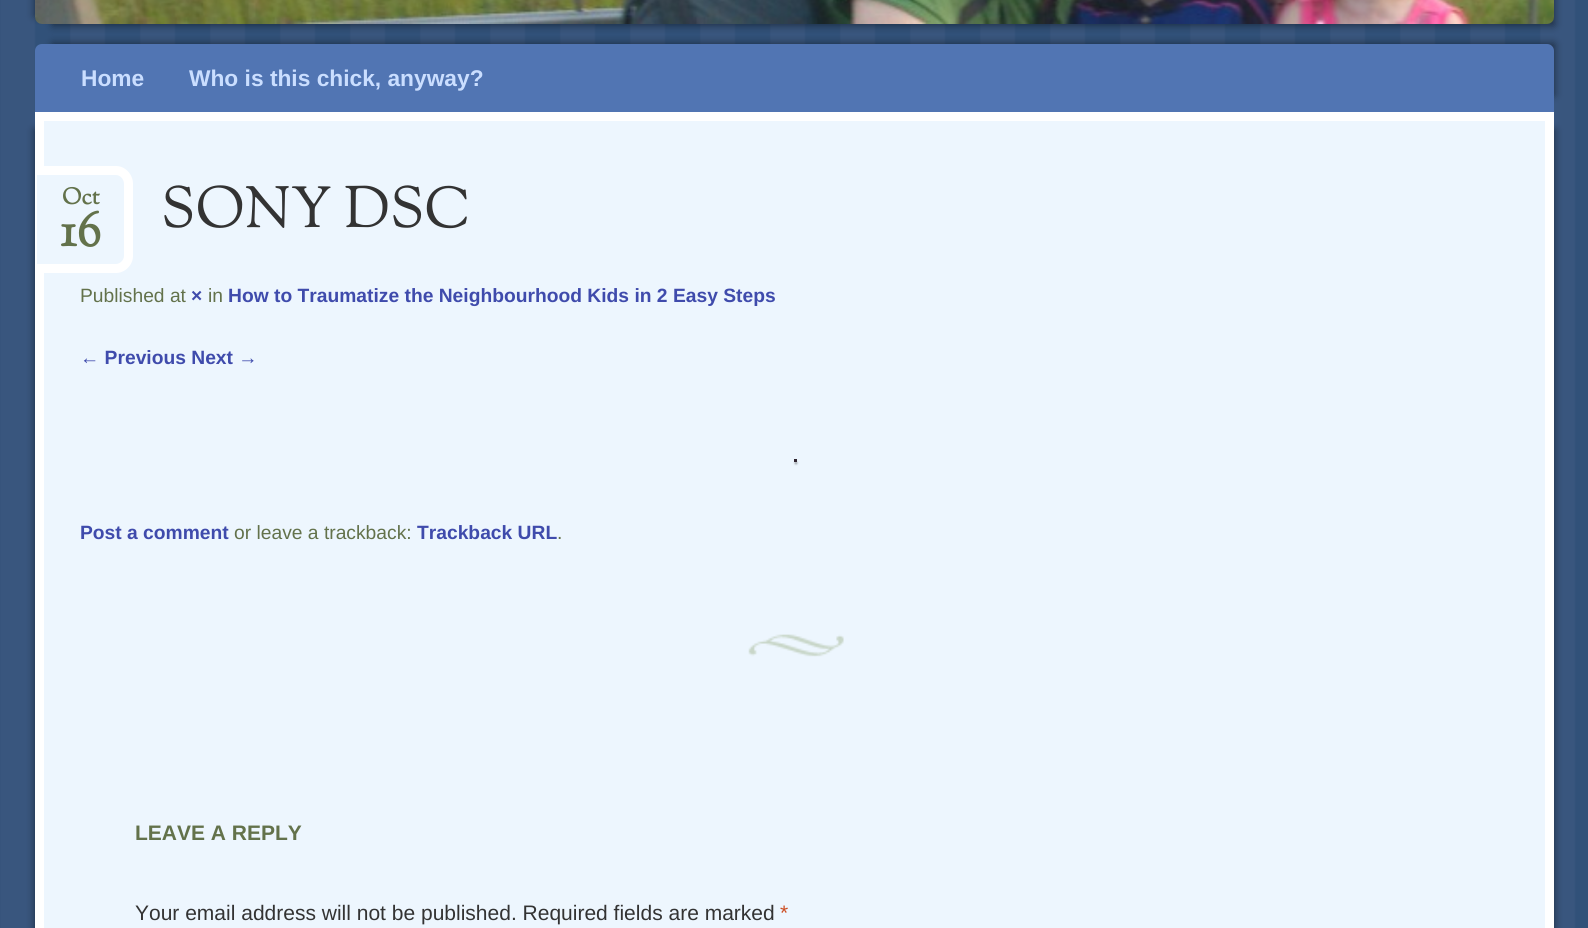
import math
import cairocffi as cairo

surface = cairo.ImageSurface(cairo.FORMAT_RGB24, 1588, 928)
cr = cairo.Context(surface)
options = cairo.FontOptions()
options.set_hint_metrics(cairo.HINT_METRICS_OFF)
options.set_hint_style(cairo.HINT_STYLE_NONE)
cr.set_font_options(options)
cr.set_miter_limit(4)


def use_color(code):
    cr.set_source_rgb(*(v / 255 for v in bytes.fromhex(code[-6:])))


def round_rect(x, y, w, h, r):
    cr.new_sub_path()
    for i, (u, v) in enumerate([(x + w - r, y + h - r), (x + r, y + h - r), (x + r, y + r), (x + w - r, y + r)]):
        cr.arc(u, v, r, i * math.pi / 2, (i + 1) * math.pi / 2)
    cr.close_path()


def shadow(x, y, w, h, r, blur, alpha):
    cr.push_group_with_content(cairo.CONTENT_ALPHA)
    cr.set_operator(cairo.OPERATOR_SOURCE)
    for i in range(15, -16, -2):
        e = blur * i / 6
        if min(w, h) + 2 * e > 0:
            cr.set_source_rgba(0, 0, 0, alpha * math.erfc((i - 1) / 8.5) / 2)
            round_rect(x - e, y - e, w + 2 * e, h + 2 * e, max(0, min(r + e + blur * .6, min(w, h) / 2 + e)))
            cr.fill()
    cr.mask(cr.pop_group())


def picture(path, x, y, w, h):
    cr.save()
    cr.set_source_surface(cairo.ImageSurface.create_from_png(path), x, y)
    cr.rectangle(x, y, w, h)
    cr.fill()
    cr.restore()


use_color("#ffffff")
cr.paint()
picture("img1.png", 0, 0, 1588, 928)
use_color("#000000")
shadow(35, -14, 1502, 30, 0, 4.5, 0.5)
shadow(53, -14, 1501, 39, 0, 4.5, 0.5)
picture("img2.png", 35, 0, 1519, 24)
shadow(53, 44, 1501, 51, 0, 4.5, 0.5)
use_color("#5175b3")
cr.new_path()
cr.move_to(42, 44)
cr.line_to(1547, 44)
cr.curve_to(1551, 44, 1554, 47, 1554, 51)
cr.line_to(1554, 112)
cr.line_to(35, 112)
cr.line_to(35, 51)
cr.curve_to(35, 47, 38, 44, 42, 44)
cr.close_path()
cr.fill()
cr.select_font_face("Liberation Sans", cairo.FONT_SLANT_NORMAL, cairo.FONT_WEIGHT_BOLD)
cr.set_font_size(22.75)
use_color("#cadeff")
cr.move_to(81, 86)
cr.show_text("Home")
cr.move_to(189, 86)
cr.show_text("Who is this chick, anyway?")
use_color("#000000")
shadow(35, 130, 1502, 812, 0, 4.5, 0.5)
shadow(53, 130, 1501, 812, 0, 4.5, 0.5)
use_color("#edf6fe")
cr.rectangle(39.5, 116.5, 1510, 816)
cr.fill_preserve()
use_color("#ffffff")
cr.set_line_width(9)
cr.stroke()
picture("img3.png", 748, 634, 96, 23)
use_color("#edf6fe")
cr.new_path()
cr.move_to(37, 175)
cr.line_to(115, 175)
cr.curve_to(120, 175, 124, 179, 124, 184)
cr.line_to(124, 255)
cr.curve_to(124, 260, 120, 264, 115, 264)
cr.line_to(37, 264)
cr.close_path()
cr.fill()
use_color("#ffffff")
cr.set_fill_rule(cairo.FILL_RULE_EVEN_ODD)
cr.new_path()
cr.move_to(37, 166)
cr.line_to(116, 166)
cr.curve_to(125, 166, 133, 174, 133, 184)
cr.line_to(133, 256)
cr.curve_to(133, 265, 125, 273, 116, 273)
cr.line_to(37, 273)
cr.close_path()
cr.move_to(37, 175)
cr.line_to(116, 175)
cr.curve_to(120, 175, 124, 179, 124, 184)
cr.line_to(124, 256)
cr.curve_to(124, 260, 120, 264, 116, 264)
cr.line_to(37, 264)
cr.close_path()
cr.fill()
cr.select_font_face("Sorts Mill Goudy", cairo.FONT_SLANT_NORMAL, cairo.FONT_WEIGHT_BOLD)
use_color("#63724b")
cr.move_to(62, 204)
cr.show_text("Oct")
cr.set_font_size(49)
cr.move_to(60, 246)
cr.show_text("16")
cr.select_font_face("Sorts Mill Goudy")
cr.set_font_size(57.75)
use_color("#333333")
cr.move_to(161, 227)
cr.show_text("SONY DSC")
cr.select_font_face("Liberation Sans")
cr.set_font_size(19.25)
use_color("#63724b")
cr.move_to(80, 302)
cr.show_text("Published at")
cr.select_font_face("Liberation Sans", cairo.FONT_SLANT_NORMAL, cairo.FONT_WEIGHT_BOLD)
use_color("#3f4bac")
cr.move_to(191, 302)
cr.show_text("×")
cr.select_font_face("Liberation Sans")
use_color("#63724b")
cr.move_to(208, 302)
cr.show_text("in")
cr.select_font_face("Liberation Sans", cairo.FONT_SLANT_NORMAL, cairo.FONT_WEIGHT_BOLD)
use_color("#3f4bac")
cr.move_to(228, 302)
cr.show_text("How to Traumatize the Neighbourhood Kids in 2 Easy Steps")
cr.move_to(80, 364)
cr.show_text("← Previous Next →")
use_color("#000000")
shadow(795, 462, 2, 2, 1, 1, 0.4)
use_color("#302530")
cr.rectangle(794, 459, 3, 3)
cr.fill()
use_color("#3f4bac")
cr.move_to(80, 539)
cr.show_text("Post a comment")
cr.select_font_face("Liberation Sans")
use_color("#63724b")
cr.move_to(234, 539)
cr.show_text("or leave a trackback:")
cr.select_font_face("Liberation Sans", cairo.FONT_SLANT_NORMAL, cairo.FONT_WEIGHT_BOLD)
use_color("#3f4bac")
cr.move_to(417, 539)
cr.show_text("Trackback URL")
cr.select_font_face("Liberation Sans")
use_color("#63724b")
cr.move_to(557, 539)
cr.show_text(".")
cr.select_font_face("Liberation Sans", cairo.FONT_SLANT_NORMAL, cairo.FONT_WEIGHT_BOLD)
cr.set_font_size(21)
cr.move_to(135, 840)
cr.show_text("LEAVE A REPLY")
cr.select_font_face("Liberation Sans")
use_color("#333333")
cr.move_to(135, 920)
cr.show_text("Your email address will not be published. Required fields are marked")
use_color("#cc4d22")
cr.move_to(780, 920)
cr.show_text("*")
surface.write_to_png("result.png")
